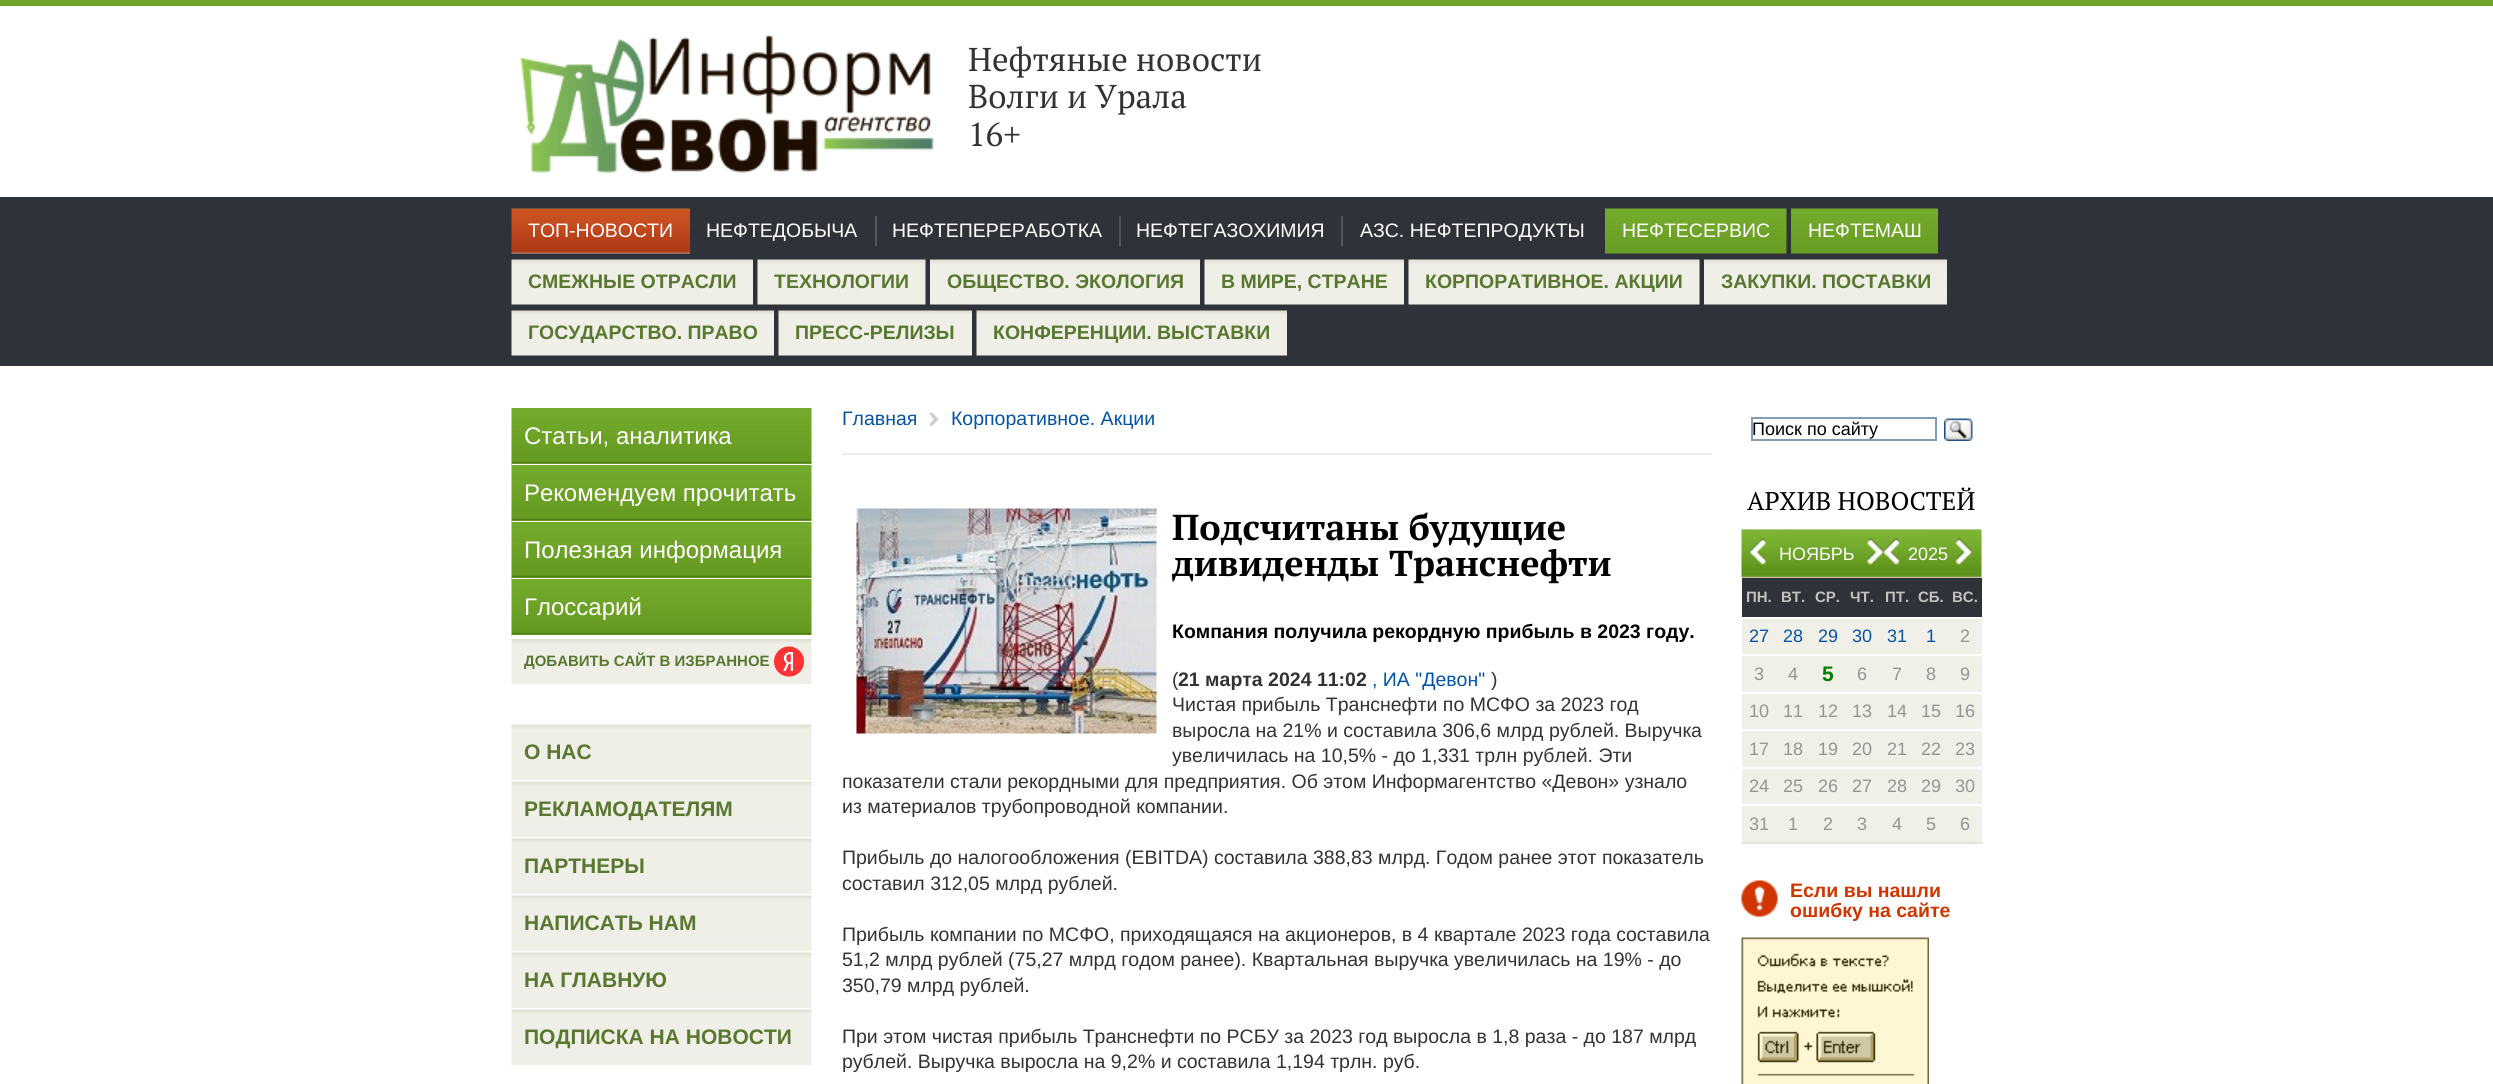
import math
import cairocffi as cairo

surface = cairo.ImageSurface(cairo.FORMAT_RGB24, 2493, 1084)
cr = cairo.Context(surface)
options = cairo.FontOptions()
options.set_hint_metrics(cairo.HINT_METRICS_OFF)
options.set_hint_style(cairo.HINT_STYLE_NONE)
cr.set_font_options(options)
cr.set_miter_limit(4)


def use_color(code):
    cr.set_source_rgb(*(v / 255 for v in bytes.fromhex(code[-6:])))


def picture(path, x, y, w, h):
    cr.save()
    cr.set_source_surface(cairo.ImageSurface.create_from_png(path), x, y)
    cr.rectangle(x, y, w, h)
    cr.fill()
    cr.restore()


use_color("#ffffff")
cr.paint()
use_color("#6ea427")
cr.rectangle(0, 0, 2493, 6)
cr.fill()
picture("img1.png", 520, 35, 414, 138)
cr.select_font_face("PT Serif")
cr.set_font_size(33)
use_color("#333333")
cr.move_to(968, 71)
cr.show_text("Нефтяные новости")
cr.move_to(968, 108)
cr.show_text("Волги и Урала")
cr.move_to(968, 146)
cr.show_text("16+")
use_color("#2f3339")
cr.rectangle(0, 197, 2493, 169)
cr.fill()
picture("img2.png", 511, 208, 179, 46)
cr.select_font_face("Liberation Sans")
cr.set_font_size(19.5)
use_color("#ffffff")
cr.move_to(528, 237)
cr.show_text("ТОП-НОВОСТИ")
use_color("#545658")
cr.rectangle(875, 216, 2, 30)
cr.fill()
use_color("#ffffff")
cr.move_to(706, 237)
cr.show_text("НЕФТЕДОБЫЧА")
use_color("#545658")
cr.rectangle(1119, 216, 2, 30)
cr.fill()
use_color("#ffffff")
cr.move_to(892, 237)
cr.show_text("НЕФТЕПЕРЕРАБОТКА")
use_color("#545658")
cr.rectangle(1341, 216, 2, 30)
cr.fill()
use_color("#ffffff")
cr.move_to(1136, 237)
cr.show_text("НЕФТЕГАЗОХИМИЯ")
cr.move_to(1360, 237)
cr.show_text("АЗС. НЕФТЕПРОДУКТЫ")
picture("img3.png", 1605, 208, 182, 46)
cr.move_to(1622, 237)
cr.show_text("НЕФТЕСЕРВИС")
picture("img4.png", 1791, 208, 147, 46)
cr.move_to(1808, 237)
cr.show_text("НЕФТЕМАШ")
picture("img5.png", 511, 259, 242, 46)
cr.select_font_face("Liberation Sans", cairo.FONT_SLANT_NORMAL, cairo.FONT_WEIGHT_BOLD)
use_color("#58782f")
cr.move_to(528, 288)
cr.show_text("СМЕЖНЫЕ ОТРАСЛИ")
picture("img6.png", 757, 259, 169, 46)
cr.move_to(774, 288)
cr.show_text("ТЕХНОЛОГИИ")
picture("img7.png", 930, 259, 270, 46)
cr.move_to(947, 288)
cr.show_text("ОБЩЕСТВО. ЭКОЛОГИЯ")
picture("img8.png", 1204, 259, 200, 46)
cr.move_to(1221, 288)
cr.show_text("В МИРЕ, СТРАНЕ")
picture("img9.png", 1408, 259, 292, 46)
cr.move_to(1425, 288)
cr.show_text("КОРПОРАТИВНОЕ. АКЦИИ")
picture("img10.png", 1704, 259, 243, 46)
cr.move_to(1721, 288)
cr.show_text("ЗАКУПКИ. ПОСТАВКИ")
picture("img11.png", 511, 310, 263, 46)
cr.move_to(528, 339)
cr.show_text("ГОСУДАРСТВО. ПРАВО")
picture("img12.png", 778, 310, 194, 46)
cr.move_to(795, 339)
cr.show_text("ПРЕСС-РЕЛИЗЫ")
picture("img13.png", 976, 310, 311, 46)
cr.move_to(993, 339)
cr.show_text("КОНФЕРЕНЦИИ. ВЫСТАВКИ")
picture("img14.png", 511, 408, 301, 57)
use_color("#ffffff")
cr.rectangle(512, 464, 300, 1)
cr.fill()
cr.select_font_face("Liberation Sans")
cr.set_font_size(24)
cr.move_to(524, 444)
cr.show_text("Статьи, аналитика")
picture("img15.png", 511, 465, 301, 57)
cr.rectangle(512, 521, 300, 1)
cr.fill()
cr.move_to(524, 501)
cr.show_text("Рекомендуем прочитать")
picture("img16.png", 511, 522, 301, 57)
cr.rectangle(512, 578, 300, 1)
cr.fill()
cr.move_to(524, 558)
cr.show_text("Полезная информация")
picture("img17.png", 511, 579, 301, 57)
cr.rectangle(512, 635, 300, 1)
cr.fill()
cr.move_to(524, 615)
cr.show_text("Глоссарий")
picture("img18.png", 511, 639, 301, 45)
cr.select_font_face("Liberation Sans", cairo.FONT_SLANT_NORMAL, cairo.FONT_WEIGHT_BOLD)
cr.set_font_size(15)
use_color("#58782f")
cr.move_to(524, 666)
cr.show_text("ДОБАВИТЬ САЙТ В ИЗБРАННОЕ")
picture("img19.png", 774, 646, 30, 31)
picture("img20.png", 511, 724, 301, 58)
use_color("#ffffff")
cr.rectangle(512, 780, 300, 2)
cr.fill()
cr.set_font_size(21)
use_color("#58782f")
cr.move_to(524, 759)
cr.show_text("О НАС")
picture("img21.png", 511, 781, 301, 58)
use_color("#ffffff")
cr.rectangle(512, 837, 300, 2)
cr.fill()
use_color("#58782f")
cr.move_to(524, 816)
cr.show_text("РЕКЛАМОДАТЕЛЯМ")
picture("img21.png", 511, 838, 301, 58)
use_color("#ffffff")
cr.rectangle(512, 894, 300, 2)
cr.fill()
use_color("#58782f")
cr.move_to(524, 873)
cr.show_text("ПАРТНЕРЫ")
picture("img21.png", 511, 895, 301, 58)
use_color("#ffffff")
cr.rectangle(512, 951, 300, 2)
cr.fill()
use_color("#58782f")
cr.move_to(524, 930)
cr.show_text("НАПИСАТЬ НАМ")
picture("img21.png", 511, 952, 301, 58)
use_color("#ffffff")
cr.rectangle(512, 1008, 300, 2)
cr.fill()
use_color("#58782f")
cr.move_to(524, 987)
cr.show_text("НА ГЛАВНУЮ")
picture("img21.png", 511, 1009, 301, 58)
use_color("#ffffff")
cr.rectangle(512, 1065, 300, 2)
cr.fill()
use_color("#58782f")
cr.move_to(524, 1044)
cr.show_text("ПОДПИСКА НА НОВОСТИ")
use_color("#eeeeee")
cr.rectangle(842, 453, 870, 2)
cr.fill()
cr.select_font_face("Liberation Sans")
cr.set_font_size(19.5)
use_color("#0553a4")
cr.move_to(842, 425)
cr.show_text("Главная")
picture("img22.png", 928, 412, 11, 15)
cr.move_to(951, 425)
cr.show_text("Корпоративное. Акции")
picture("img23.png", 856, 508, 301, 226)
cr.select_font_face("PT Serif", cairo.FONT_SLANT_NORMAL, cairo.FONT_WEIGHT_BOLD)
cr.set_font_size(36)
use_color("#000000")
cr.move_to(1172, 540)
cr.show_text("Подсчитаны будущие")
cr.move_to(1172, 576)
cr.show_text("дивиденды Транснефти")
cr.select_font_face("Liberation Sans", cairo.FONT_SLANT_NORMAL, cairo.FONT_WEIGHT_BOLD)
cr.set_font_size(19.5)
cr.move_to(1172, 638)
cr.show_text("Компания получила рекордную прибыль в 2023 году.")
cr.select_font_face("Liberation Sans")
use_color("#333333")
cr.move_to(1172, 686)
cr.show_text("(")
cr.select_font_face("Liberation Sans", cairo.FONT_SLANT_NORMAL, cairo.FONT_WEIGHT_BOLD)
cr.move_to(1178, 686)
cr.show_text("21 марта 2024 11:02")
cr.select_font_face("Liberation Sans")
use_color("#0553a4")
cr.move_to(1372, 686)
cr.show_text(", ИА \"Девон\"")
use_color("#333333")
cr.move_to(1491, 686)
cr.show_text(")")
cr.move_to(1172, 711)
cr.show_text("Чистая прибыль Транснефти по МСФО за 2023 год")
cr.move_to(1172, 737)
cr.show_text("выросла на 21% и составила 306,6 млрд рублей. Выручка")
cr.move_to(1172, 762)
cr.show_text("увеличилась на 10,5% - до 1,331 трлн рублей. Эти")
cr.move_to(842, 788)
cr.show_text("показатели стали рекордными для предприятия. Об этом Информагентство «Девон» узнало")
cr.move_to(842, 813)
cr.show_text("из материалов трубопроводной компании.")
cr.move_to(842, 864)
cr.show_text("Прибыль до налогообложения (EBITDA) составила 388,83 млрд. Годом ранее этот показатель")
cr.move_to(842, 890)
cr.show_text("составил 312,05 млрд рублей.")
cr.move_to(842, 941)
cr.show_text("Прибыль компании по МСФО, приходящаяся на акционеров, в 4 квартале 2023 года составила")
cr.move_to(842, 966)
cr.show_text("51,2 млрд рублей (75,27 млрд годом ранее). Квартальная выручка увеличилась на 19% - до")
cr.move_to(842, 992)
cr.show_text("350,79 млрд рублей.")
cr.move_to(842, 1043)
cr.show_text("При этом чистая прибыль Транснефти по РСБУ за 2023 год выросла в 1,8 раза - до 187 млрд")
cr.move_to(842, 1068)
cr.show_text("рублей. Выручка выросла на 9,2% и составила 1,194 трлн. руб.")
cr.rectangle(1752, 418, 184, 22)
use_color("#7f9db9")
cr.stroke()
cr.set_font_size(18)
use_color("#000000")
cr.move_to(1752, 435)
cr.show_text("Поиск по сайту")
picture("img24.png", 1944, 418, 29, 23)
cr.select_font_face("PT Serif")
cr.set_font_size(25.5)
cr.move_to(1747, 510)
cr.show_text("АРХИВ НОВОСТЕЙ")
picture("img25.png", 1741, 529, 241, 49)
picture("img26.png", 1750, 538, 16, 27)
picture("img27.png", 1867, 538, 16, 27)
picture("img28.png", 1883, 538, 17, 27)
picture("img29.png", 1955, 538, 17, 27)
cr.select_font_face("Liberation Sans")
cr.set_font_size(18)
use_color("#ffffff")
cr.move_to(1779, 560)
cr.show_text("НОЯБРЬ")
cr.move_to(1908, 560)
cr.show_text("2025")
use_color("#2f3339")
cr.rectangle(1742, 578, 240, 39)
cr.fill()
cr.select_font_face("Liberation Sans", cairo.FONT_SLANT_NORMAL, cairo.FONT_WEIGHT_BOLD)
cr.set_font_size(15)
use_color("#c2c2c2")
cr.move_to(1746, 602)
cr.show_text("ПН.")
cr.move_to(1781, 602)
cr.show_text("ВТ.")
cr.move_to(1815, 602)
cr.show_text("СР.")
cr.move_to(1850, 602)
cr.show_text("ЧТ.")
cr.move_to(1885, 602)
cr.show_text("ПТ.")
cr.move_to(1918, 602)
cr.show_text("СБ.")
cr.move_to(1952, 602)
cr.show_text("ВС.")
use_color("#f0efe8")
cr.rectangle(1742, 619, 240, 35)
cr.fill()
cr.select_font_face("Liberation Sans")
cr.set_font_size(18)
use_color("#0553a4")
cr.move_to(1749, 642)
cr.show_text("27")
cr.move_to(1783, 642)
cr.show_text("28")
cr.move_to(1818, 642)
cr.show_text("29")
cr.move_to(1852, 642)
cr.show_text("30")
cr.move_to(1887, 642)
cr.show_text("31")
cr.move_to(1926, 642)
cr.show_text("1")
use_color("#959591")
cr.move_to(1960, 642)
cr.show_text("2")
use_color("#f0efe8")
cr.rectangle(1742, 656, 240, 36)
cr.fill()
use_color("#959591")
cr.move_to(1754, 680)
cr.show_text("3")
cr.move_to(1788, 680)
cr.show_text("4")
cr.select_font_face("Liberation Sans", cairo.FONT_SLANT_NORMAL, cairo.FONT_WEIGHT_BOLD)
cr.set_font_size(21)
use_color("#008000")
cr.move_to(1822, 681)
cr.show_text("5")
cr.select_font_face("Liberation Sans")
cr.set_font_size(18)
use_color("#959591")
cr.move_to(1857, 680)
cr.show_text("6")
cr.move_to(1892, 680)
cr.show_text("7")
cr.move_to(1926, 680)
cr.show_text("8")
cr.move_to(1960, 680)
cr.show_text("9")
use_color("#f0efe8")
cr.rectangle(1742, 694, 240, 35)
cr.fill()
use_color("#959591")
cr.move_to(1749, 717)
cr.show_text("10")
cr.move_to(1783, 717)
cr.show_text("11")
cr.move_to(1818, 717)
cr.show_text("12")
cr.move_to(1852, 717)
cr.show_text("13")
cr.move_to(1887, 717)
cr.show_text("14")
cr.move_to(1921, 717)
cr.show_text("15")
cr.move_to(1955, 717)
cr.show_text("16")
use_color("#f0efe8")
cr.rectangle(1742, 731, 240, 36)
cr.fill()
use_color("#959591")
cr.move_to(1749, 755)
cr.show_text("17")
cr.move_to(1783, 755)
cr.show_text("18")
cr.move_to(1818, 755)
cr.show_text("19")
cr.move_to(1852, 755)
cr.show_text("20")
cr.move_to(1887, 755)
cr.show_text("21")
cr.move_to(1921, 755)
cr.show_text("22")
cr.move_to(1955, 755)
cr.show_text("23")
use_color("#f0efe8")
cr.rectangle(1742, 769, 240, 35)
cr.fill()
use_color("#959591")
cr.move_to(1749, 792)
cr.show_text("24")
cr.move_to(1783, 792)
cr.show_text("25")
cr.move_to(1818, 792)
cr.show_text("26")
cr.move_to(1852, 792)
cr.show_text("27")
cr.move_to(1887, 792)
cr.show_text("28")
cr.move_to(1921, 792)
cr.show_text("29")
cr.move_to(1955, 792)
cr.show_text("30")
use_color("#f0efe8")
cr.rectangle(1742, 806, 240, 36)
cr.fill()
use_color("#e4e3dc")
cr.rectangle(1742, 842, 241, 2)
cr.fill()
use_color("#959591")
cr.move_to(1749, 830)
cr.show_text("31")
cr.move_to(1788, 830)
cr.show_text("1")
cr.move_to(1823, 830)
cr.show_text("2")
cr.move_to(1857, 830)
cr.show_text("3")
cr.move_to(1892, 830)
cr.show_text("4")
cr.move_to(1926, 830)
cr.show_text("5")
cr.move_to(1960, 830)
cr.show_text("6")
picture("img30.png", 1741, 880, 37, 37)
cr.select_font_face("Liberation Sans", cairo.FONT_SLANT_NORMAL, cairo.FONT_WEIGHT_BOLD)
cr.set_font_size(19.5)
use_color("#d03600")
cr.move_to(1790, 897)
cr.show_text("Если вы нашли")
cr.move_to(1790, 917)
cr.show_text("ошибку на сайте")
picture("img31.png", 1741, 937, 188, 147)
surface.write_to_png("result.png")
